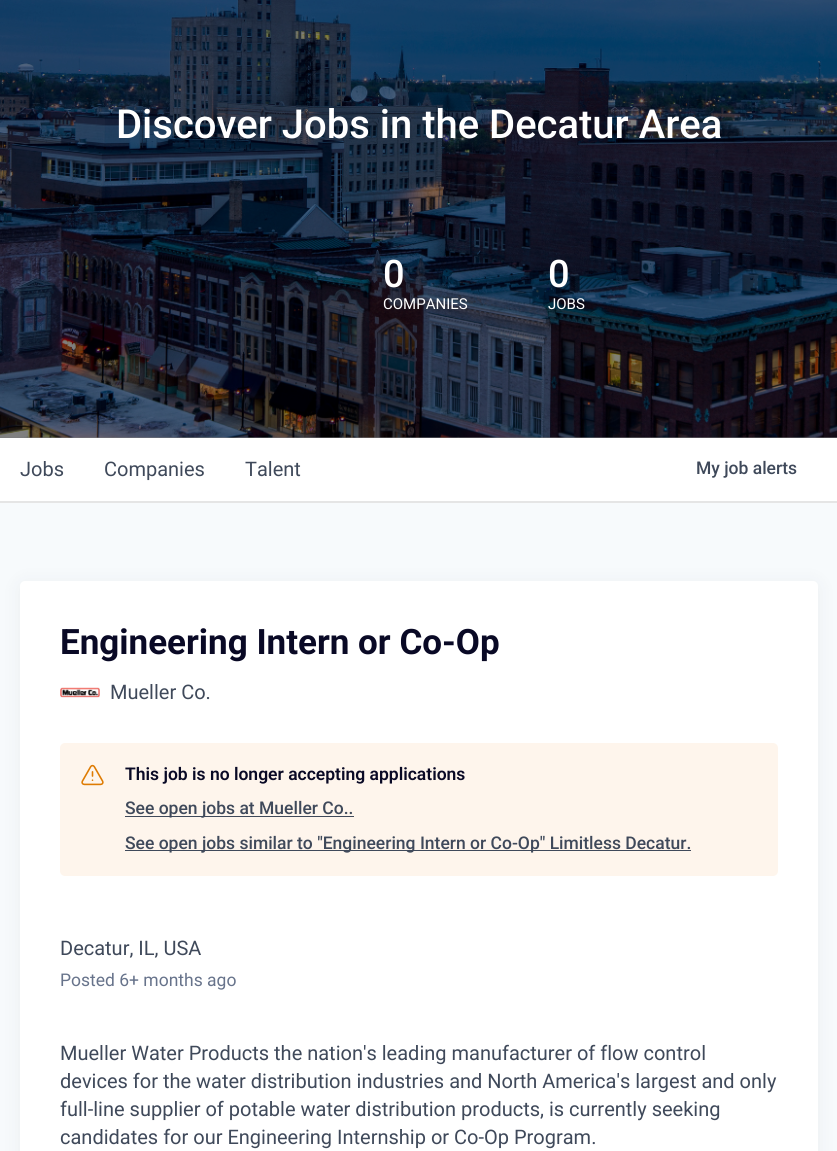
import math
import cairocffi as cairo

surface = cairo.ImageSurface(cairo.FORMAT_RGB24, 837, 1151)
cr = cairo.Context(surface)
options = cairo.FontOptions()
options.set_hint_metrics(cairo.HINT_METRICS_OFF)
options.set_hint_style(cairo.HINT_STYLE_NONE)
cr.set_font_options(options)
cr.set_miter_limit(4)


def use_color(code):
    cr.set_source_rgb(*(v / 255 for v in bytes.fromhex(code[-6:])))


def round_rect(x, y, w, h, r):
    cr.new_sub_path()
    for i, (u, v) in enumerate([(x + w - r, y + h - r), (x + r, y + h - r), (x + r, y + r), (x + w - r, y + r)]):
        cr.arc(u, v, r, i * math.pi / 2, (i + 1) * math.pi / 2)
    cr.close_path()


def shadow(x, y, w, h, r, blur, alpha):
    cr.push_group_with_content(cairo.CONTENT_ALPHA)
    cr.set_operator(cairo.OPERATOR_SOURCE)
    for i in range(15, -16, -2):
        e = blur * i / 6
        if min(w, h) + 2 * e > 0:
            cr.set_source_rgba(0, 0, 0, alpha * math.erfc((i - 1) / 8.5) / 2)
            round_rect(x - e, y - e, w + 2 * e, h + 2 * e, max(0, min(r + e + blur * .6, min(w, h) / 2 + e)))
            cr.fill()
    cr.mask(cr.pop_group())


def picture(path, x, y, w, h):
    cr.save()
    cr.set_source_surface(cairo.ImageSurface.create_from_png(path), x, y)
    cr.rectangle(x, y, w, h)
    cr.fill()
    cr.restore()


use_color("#f7fafc")
cr.paint()
use_color("#7c7d7e")
cr.rectangle(0, 437, 837, 1)
cr.fill()
picture("img1.png", 0, 0, 837, 438)
cr.select_font_face("Roboto Medium")
cr.set_font_size(40)
use_color("#ffffff")
cr.move_to(116, 138)
cr.show_text("Discover Jobs in the Decatur Area")
cr.set_font_size(38)
cr.move_to(383, 287)
cr.show_text("0")
cr.select_font_face("Roboto")
cr.set_font_size(15)
cr.move_to(383, 309)
cr.show_text("COMPANIES")
cr.select_font_face("Roboto Medium")
cr.set_font_size(38)
cr.move_to(548, 287)
cr.show_text("0")
cr.select_font_face("Roboto")
cr.set_font_size(15)
cr.move_to(548, 309)
cr.show_text("JOBS")
use_color("#e5e5e5")
cr.new_path()
cr.move_to(0, 501)
cr.line_to(0, 503)
cr.line_to(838, 503)
cr.line_to(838, 439)
cr.line_to(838, 501)
cr.close_path()
cr.fill()
use_color("#ffffff")
cr.rectangle(0, 438, 837, 63)
cr.fill()
cr.set_font_size(20)
use_color("#3f495a")
cr.move_to(20, 476)
cr.show_text("Jobs")
cr.move_to(104, 476)
cr.show_text("Companies")
cr.move_to(245, 476)
cr.show_text("Talent")
cr.select_font_face("Roboto Medium")
cr.set_font_size(17.5)
cr.move_to(696, 474)
cr.show_text("My job alerts")
use_color("#1b2432")
shadow(20, 583, 798, 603, 5, 10, 0.06)
use_color("#ffffff")
round_rect(20, 581, 798, 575, 5)
cr.fill()
cr.select_font_face("Roboto", cairo.FONT_SLANT_NORMAL, cairo.FONT_WEIGHT_BOLD)
cr.set_font_size(35)
use_color("#090925")
cr.move_to(60, 654)
cr.show_text("Engineering Intern or Co-Op")
picture("img2.png", 60, 687, 40, 11)
cr.select_font_face("Roboto")
cr.set_font_size(20)
use_color("#3f495a")
cr.move_to(110, 699)
cr.show_text("Mueller Co.")
use_color("#fef5ec")
round_rect(60, 743, 718, 133, 5)
cr.fill()
picture("img3.png", 81, 764, 23, 22)
cr.select_font_face("Roboto SemiBold")
cr.set_font_size(17.5)
use_color("#090925")
cr.move_to(125, 780)
cr.show_text("This job is no longer accepting applications")
use_color("#3f495a")
cr.rectangle(125, 816, 229, 1)
cr.fill()
cr.select_font_face("Roboto Medium")
cr.move_to(125, 814)
cr.show_text("See open jobs at Mueller Co..")
cr.rectangle(125, 850, 561, 1)
cr.fill()
cr.move_to(125, 849)
cr.show_text("See open jobs similar to \"Engineering Intern or Co-Op\" Limitless Decatur.")
cr.rectangle(686, 850, 5, 1)
cr.fill()
cr.select_font_face("Roboto")
cr.set_font_size(20)
cr.move_to(60, 955)
cr.show_text("Decatur, IL, USA")
cr.set_font_size(17.5)
use_color("#67738b")
cr.move_to(60, 986)
cr.show_text("Posted 6+ months ago")
cr.set_font_size(20)
use_color("#3f495a")
cr.move_to(60, 1060)
cr.show_text("Mueller Water Products the nation's leading manufacturer of flow control")
cr.move_to(60, 1088)
cr.show_text("devices for the water distribution industries and North America's largest and only")
cr.move_to(60, 1116)
cr.show_text("full-line supplier of potable water distribution products, is currently seeking")
cr.move_to(60, 1144)
cr.show_text("candidates for our Engineering Internship or Co-Op Program.")
surface.write_to_png("result.png")
